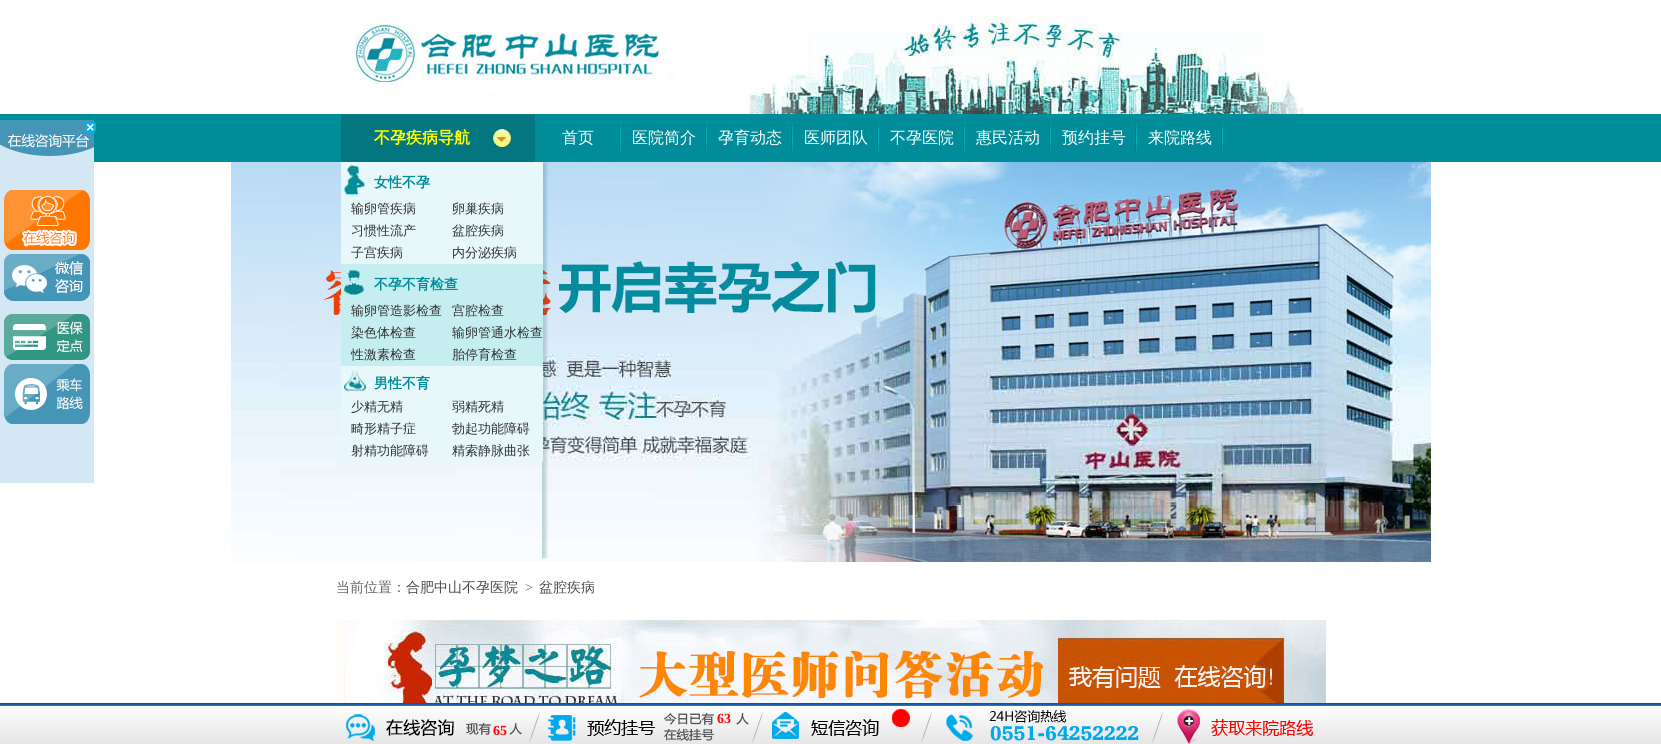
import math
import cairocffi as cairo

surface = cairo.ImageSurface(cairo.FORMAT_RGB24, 1661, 744)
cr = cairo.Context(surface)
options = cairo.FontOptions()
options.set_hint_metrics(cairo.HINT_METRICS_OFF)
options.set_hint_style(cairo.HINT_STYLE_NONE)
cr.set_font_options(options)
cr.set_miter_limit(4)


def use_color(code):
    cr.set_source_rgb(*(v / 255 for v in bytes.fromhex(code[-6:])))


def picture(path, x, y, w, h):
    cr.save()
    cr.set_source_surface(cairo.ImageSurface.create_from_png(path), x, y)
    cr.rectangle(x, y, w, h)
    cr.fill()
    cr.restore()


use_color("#ffffff")
cr.paint()
use_color("#008d99")
cr.rectangle(0, 114, 1661, 48)
cr.fill()
picture("img1.png", 0, 120, 94, 363)
picture("img2.png", 85, 122, 11, 11)
picture("img3.png", 354, 16, 950, 98)
use_color("#047680")
cr.rectangle(341, 114, 194, 48)
cr.fill()
picture("img4.png", 493, 129, 18, 18)
cr.select_font_face("WenQuanYi Zen Hei", cairo.FONT_SLANT_NORMAL, cairo.FONT_WEIGHT_BOLD)
cr.set_font_size(16)
use_color("#ffff00")
cr.move_to(374, 143)
cr.show_text("不孕疾病导航")
picture("img10.png", 231, 162, 1200, 91)
picture("img11.png", 231, 253, 1200, 93)
picture("img12.png", 231, 346, 1200, 82)
picture("img13.png", 231, 428, 1200, 77)
picture("img14.png", 231, 505, 1200, 57)
picture("img5.png", 542, 162, 6, 397)
use_color("#e8f8fa")
cr.rectangle(341, 162, 202, 102)
cr.fill()
picture("img6.png", 344, 165, 21, 30)
cr.set_font_size(14)
use_color("#008d99")
cr.move_to(374, 187)
cr.show_text("女性不孕")
cr.select_font_face("WenQuanYi Zen Hei Medium")
cr.set_font_size(13)
use_color("#303030")
cr.move_to(351, 213)
cr.show_text("输卵管疾病")
cr.move_to(452, 213)
cr.show_text("卵巢疾病")
cr.move_to(351, 235)
cr.show_text("习惯性流产")
cr.move_to(452, 235)
cr.show_text("盆腔疾病")
cr.move_to(351, 257)
cr.show_text("子宫疾病")
cr.move_to(452, 257)
cr.show_text("内分泌疾病")
use_color("#c6eef1")
cr.rectangle(341, 264, 202, 102)
cr.fill()
picture("img7.png", 344, 270, 21, 25)
cr.select_font_face("WenQuanYi Zen Hei", cairo.FONT_SLANT_NORMAL, cairo.FONT_WEIGHT_BOLD)
cr.set_font_size(14)
use_color("#008d99")
cr.move_to(374, 289)
cr.show_text("不孕不育检查")
cr.select_font_face("WenQuanYi Zen Hei Medium")
cr.set_font_size(13)
use_color("#303030")
cr.move_to(351, 315)
cr.show_text("输卵管造影检查")
cr.move_to(452, 315)
cr.show_text("宫腔检查")
cr.move_to(351, 337)
cr.show_text("染色体检查")
cr.move_to(452, 337)
cr.show_text("输卵管通水检查")
cr.move_to(351, 359)
cr.show_text("性激素检查")
cr.move_to(452, 359)
cr.show_text("胎停育检查")
use_color("#e8f8fa")
cr.rectangle(341, 366, 202, 96)
cr.fill()
picture("img8.png", 344, 370, 22, 22)
cr.select_font_face("WenQuanYi Zen Hei", cairo.FONT_SLANT_NORMAL, cairo.FONT_WEIGHT_BOLD)
cr.set_font_size(14)
use_color("#008d99")
cr.move_to(374, 388)
cr.show_text("男性不育")
cr.select_font_face("WenQuanYi Zen Hei Medium")
cr.set_font_size(13)
use_color("#303030")
cr.move_to(351, 411)
cr.show_text("少精无精")
cr.move_to(452, 411)
cr.show_text("弱精死精")
cr.move_to(351, 433)
cr.show_text("畸形精子症")
cr.move_to(452, 433)
cr.show_text("勃起功能障碍")
cr.move_to(351, 455)
cr.show_text("射精功能障碍")
cr.move_to(452, 455)
cr.show_text("精索静脉曲张")
picture("img9.png", 619, 122, 2, 32)
cr.set_font_size(16)
use_color("#ffffff")
cr.move_to(562, 143)
cr.show_text("首页")
picture("img9.png", 705, 122, 2, 32)
cr.move_to(632, 143)
cr.show_text("医院简介")
picture("img9.png", 791, 122, 2, 32)
cr.move_to(718, 143)
cr.show_text("孕育动态")
picture("img9.png", 877, 122, 2, 32)
cr.move_to(804, 143)
cr.show_text("医师团队")
picture("img9.png", 963, 122, 2, 32)
cr.move_to(890, 143)
cr.show_text("不孕医院")
picture("img9.png", 1049, 122, 2, 32)
cr.move_to(976, 143)
cr.show_text("惠民活动")
picture("img9.png", 1135, 122, 2, 32)
cr.move_to(1062, 143)
cr.show_text("预约挂号")
picture("img9.png", 1221, 122, 2, 32)
cr.move_to(1148, 143)
cr.show_text("来院路线")
cr.set_font_size(14)
use_color("#666666")
cr.move_to(336, 592)
cr.show_text("当前位置：")
use_color("#4a4a4a")
cr.move_to(406, 592)
cr.show_text("合肥中山不孕医院")
cr.select_font_face("Liberation Serif")
use_color("#666666")
cr.move_to(525, 592)
cr.show_text(">")
cr.select_font_face("WenQuanYi Zen Hei Medium")
use_color("#4a4a4a")
cr.move_to(539, 592)
cr.show_text("盆腔疾病")
picture("img15.png", 336, 619, 990, 84)
picture("img16.png", 0, 703, 1661, 41)
picture("img17.png", 335, 703, 992, 41)
cr.select_font_face("Liberation Serif", cairo.FONT_SLANT_NORMAL, cairo.FONT_WEIGHT_BOLD)
use_color("#ff0000")
cr.move_to(717, 723)
cr.show_text("63")
cr.move_to(493, 735)
cr.show_text("65")
surface.write_to_png("result.png")
